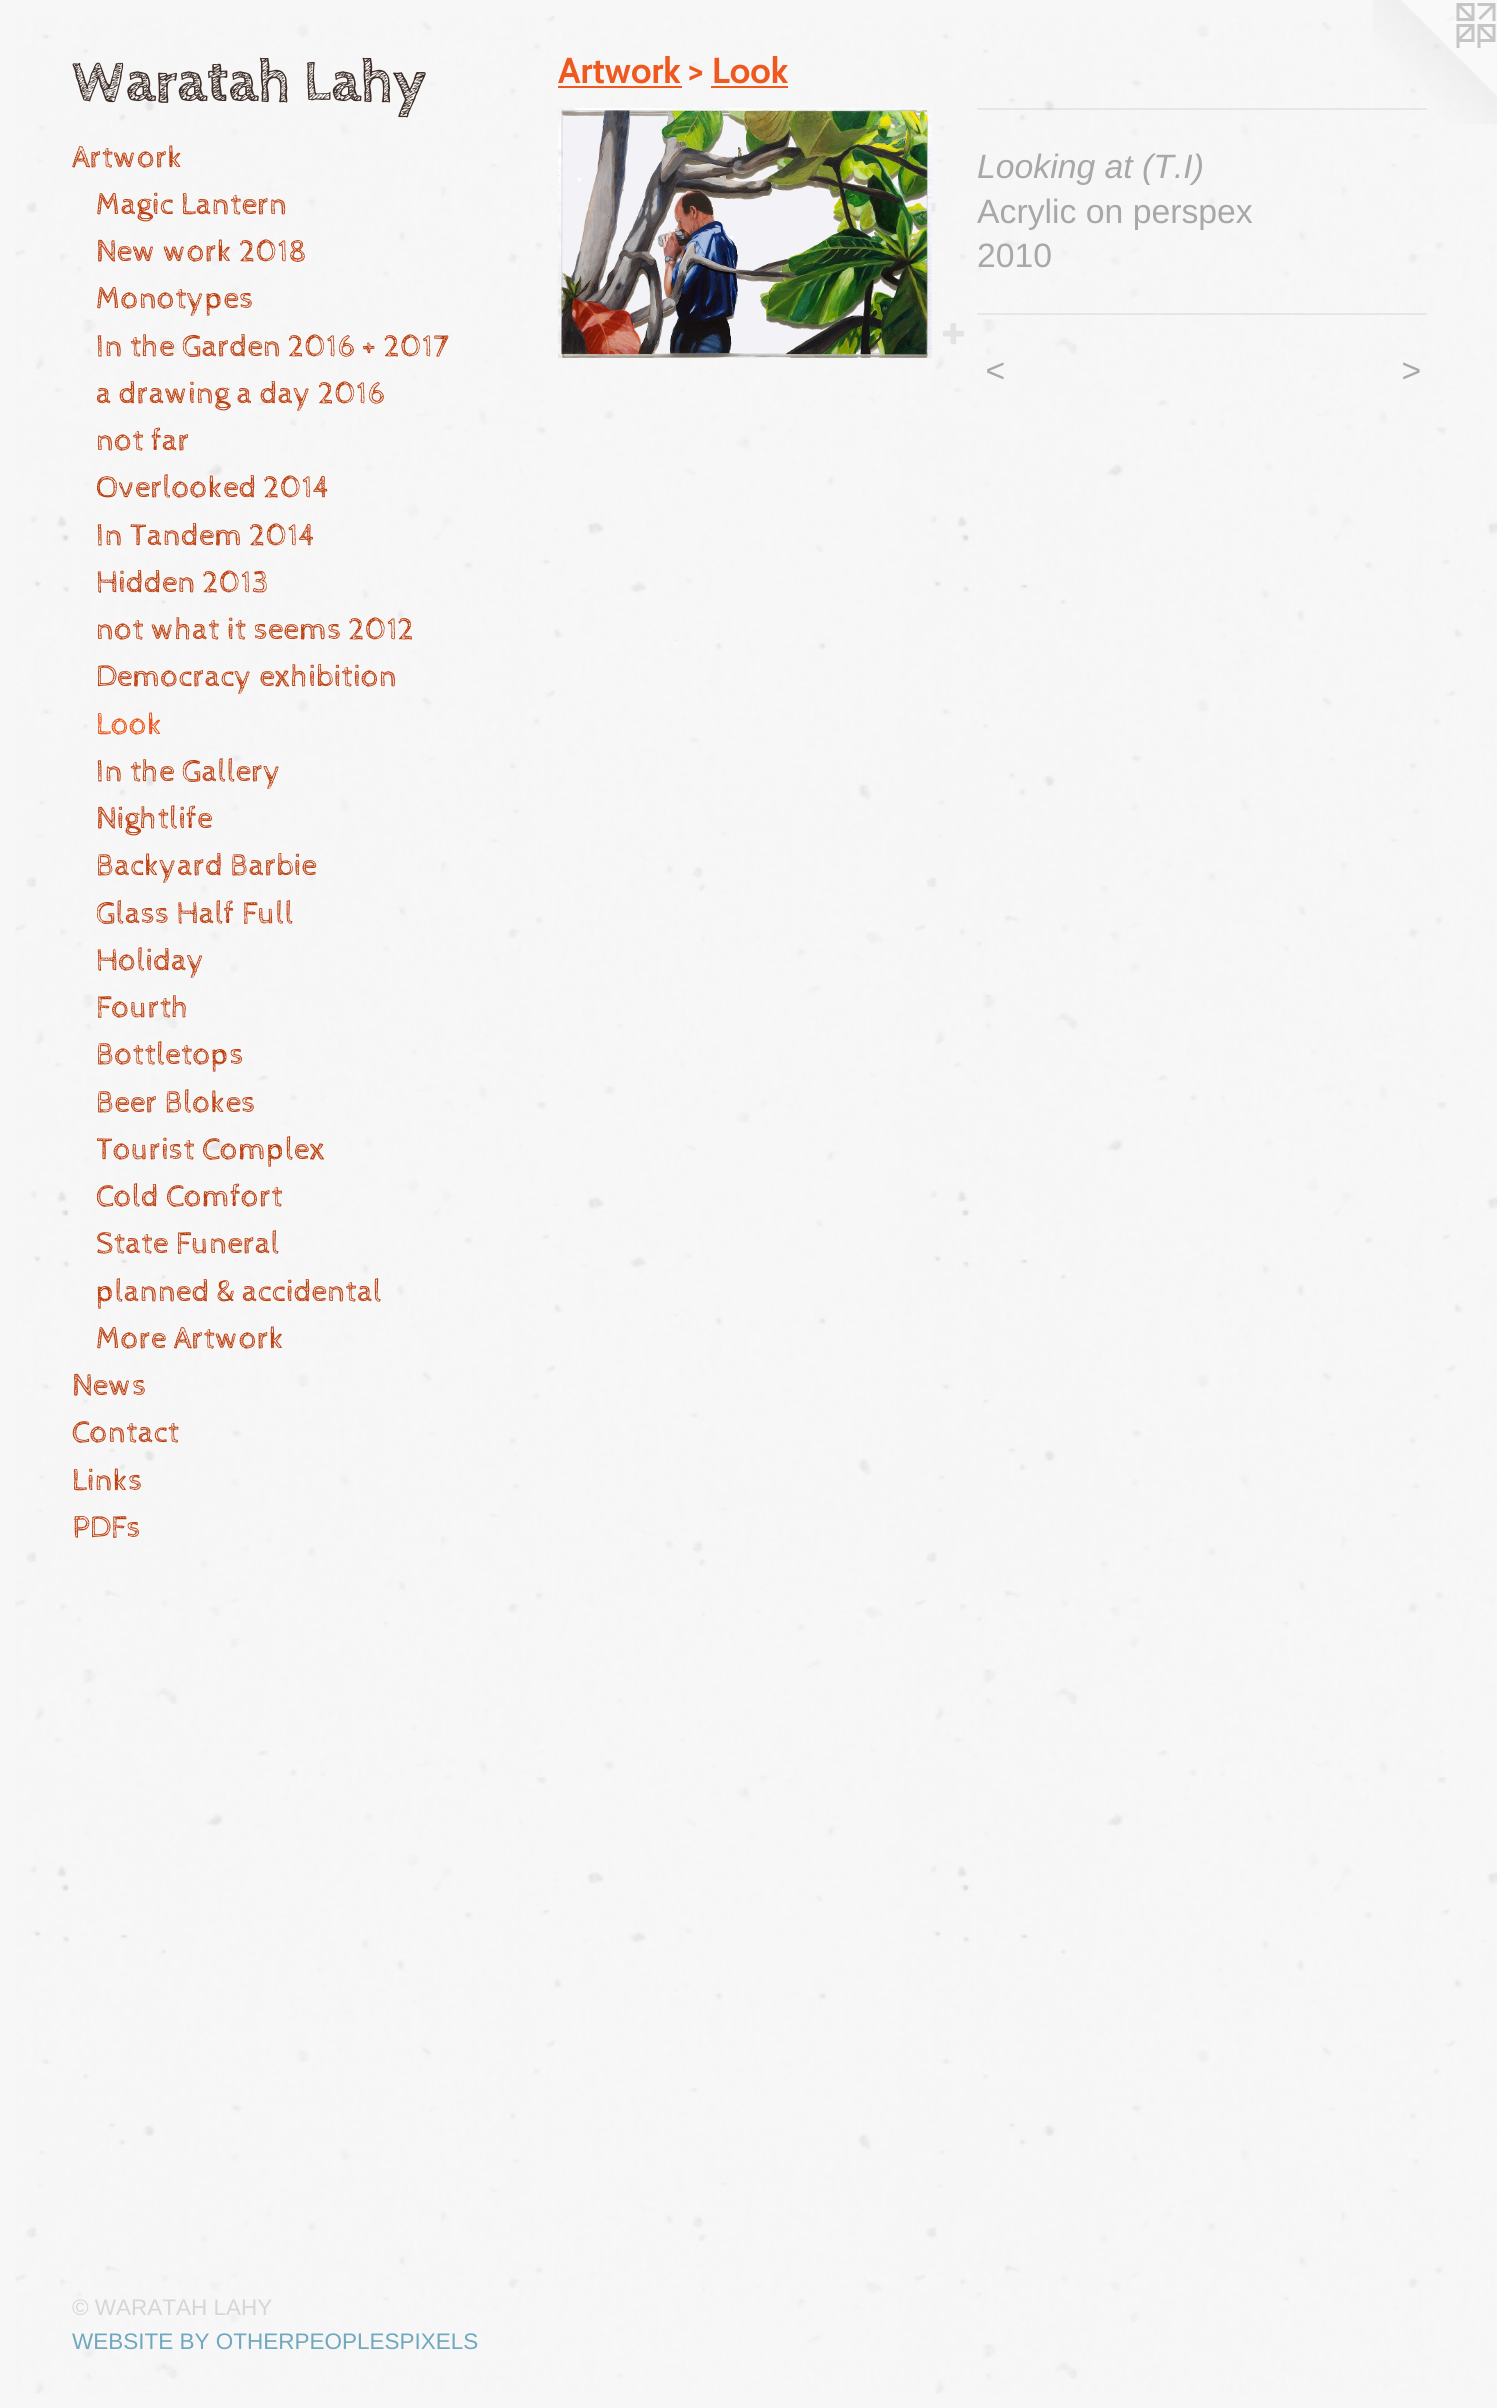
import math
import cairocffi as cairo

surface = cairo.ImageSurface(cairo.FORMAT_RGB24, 1497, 2408)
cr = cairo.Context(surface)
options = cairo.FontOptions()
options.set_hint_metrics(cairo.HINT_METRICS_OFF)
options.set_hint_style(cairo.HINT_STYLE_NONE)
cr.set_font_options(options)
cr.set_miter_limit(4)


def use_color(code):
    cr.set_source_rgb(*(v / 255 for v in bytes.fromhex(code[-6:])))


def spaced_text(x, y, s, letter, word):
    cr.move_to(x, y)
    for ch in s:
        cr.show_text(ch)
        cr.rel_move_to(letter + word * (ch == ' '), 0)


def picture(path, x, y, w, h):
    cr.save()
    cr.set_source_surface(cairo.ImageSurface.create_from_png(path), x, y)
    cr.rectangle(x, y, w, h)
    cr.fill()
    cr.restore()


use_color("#f7f7f7")
cr.paint()
picture("img1.png", 15, 15, 1482, 2379)
cr.select_font_face("Cabin Sketch", cairo.FONT_SLANT_NORMAL, cairo.FONT_WEIGHT_BOLD)
cr.set_font_size(58.5)
use_color("#3f2e27")
cr.move_to(72, 100)
cr.show_text("Waratah Lahy")
cr.select_font_face("Cabin Sketch")
cr.set_font_size(31.5)
use_color("#bd3f0f")
cr.move_to(72, 167)
cr.show_text("Artwork")
cr.move_to(96, 214)
cr.show_text("Magic Lantern")
cr.move_to(96, 261)
cr.show_text("New work 2018")
cr.move_to(96, 308)
cr.show_text("Monotypes")
cr.move_to(96, 356)
cr.show_text("In the Garden 2016 + 2017")
cr.save()
cr.rectangle(97, 371, 425, 48)
cr.clip()
cr.move_to(96, 403)
cr.show_text("a drawing a day 2016")
cr.restore()
cr.move_to(96, 450)
cr.show_text("not far")
cr.save()
cr.rectangle(97, 466, 425, 47)
cr.clip()
cr.move_to(96, 497)
cr.show_text("Overlooked 2014")
cr.restore()
cr.move_to(96, 545)
cr.show_text("In Tandem 2014")
cr.move_to(96, 592)
cr.show_text("Hidden 2013")
cr.move_to(96, 639)
cr.show_text("not what it seems 2012")
cr.move_to(96, 686)
cr.show_text("Democracy exhibition")
use_color("#ec4f13")
cr.move_to(96, 734)
cr.show_text("Look")
use_color("#bd3f0f")
cr.move_to(96, 781)
cr.show_text("In the Gallery")
cr.move_to(96, 828)
cr.show_text("Nightlife")
cr.move_to(96, 875)
cr.show_text("Backyard Barbie")
cr.save()
cr.rectangle(97, 891, 425, 47)
cr.clip()
cr.move_to(96, 923)
cr.show_text("Glass Half Full")
cr.restore()
cr.move_to(96, 970)
cr.show_text("Holiday")
cr.move_to(96, 1017)
cr.show_text("Fourth")
cr.move_to(96, 1064)
cr.show_text("Bottletops")
cr.move_to(96, 1112)
cr.show_text("Beer Blokes")
cr.save()
cr.rectangle(97, 1127, 425, 48)
cr.clip()
cr.move_to(96, 1159)
cr.show_text("Tourist Complex")
cr.restore()
cr.save()
cr.rectangle(97, 1175, 425, 47)
cr.clip()
cr.move_to(96, 1206)
cr.show_text("Cold Comfort")
cr.restore()
cr.move_to(96, 1253)
cr.show_text("State Funeral")
cr.move_to(96, 1301)
cr.show_text("planned & accidental")
cr.move_to(96, 1348)
cr.show_text("More Artwork")
cr.move_to(72, 1395)
cr.show_text("News")
cr.move_to(72, 1442)
cr.show_text("Contact")
cr.move_to(72, 1490)
cr.show_text("Links")
cr.move_to(72, 1537)
cr.show_text("PDFs")
cr.select_font_face("Liberation Sans")
cr.set_font_size(22.5)
use_color("#d6d6d6")
cr.move_to(72, 2315)
cr.show_text("© WARATAH LAHY")
use_color("#70a8c0")
cr.move_to(72, 2349)
cr.show_text("WEBSITE BY OTHERPEOPLESPIXELS")
cr.select_font_face("Cabin", cairo.FONT_SLANT_NORMAL, cairo.FONT_WEIGHT_BOLD)
cr.set_font_size(36)
use_color("#ef581f")
cr.move_to(558, 83)
cr.show_text("Artwork > Look")
cr.rectangle(558, 86, 124, 2)
cr.fill()
cr.rectangle(711, 86, 77, 2)
cr.fill()
picture("img2.png", 558, 108, 374, 250)
picture("img3.png", 942, 323, 22, 22)
picture("img4.png", 1373, 0, 124, 124)
cr.set_source_rgba(0.659, 0.659, 0.659, 0.2)
cr.rectangle(977, 108, 450, 2)
cr.fill()
cr.select_font_face("Liberation Sans", cairo.FONT_SLANT_ITALIC)
cr.set_font_size(33.75)
use_color("#a8a8a8")
cr.move_to(977, 178)
cr.show_text("Looking at (T.I)")
cr.select_font_face("Liberation Sans")
cr.move_to(977, 223)
cr.show_text("Acrylic on perspex")
cr.move_to(977, 267)
cr.show_text("2010")
cr.set_source_rgba(0.659, 0.659, 0.659, 0.2)
cr.rectangle(977, 313, 450, 2)
cr.fill()
cr.select_font_face("Liberation Sans", cairo.FONT_SLANT_ITALIC)
use_color("#a8a8a8")
spaced_text(985, 382, "<", 2, 0)
spaced_text(1401, 382, ">", 2, 0)
surface.write_to_png("result.png")
